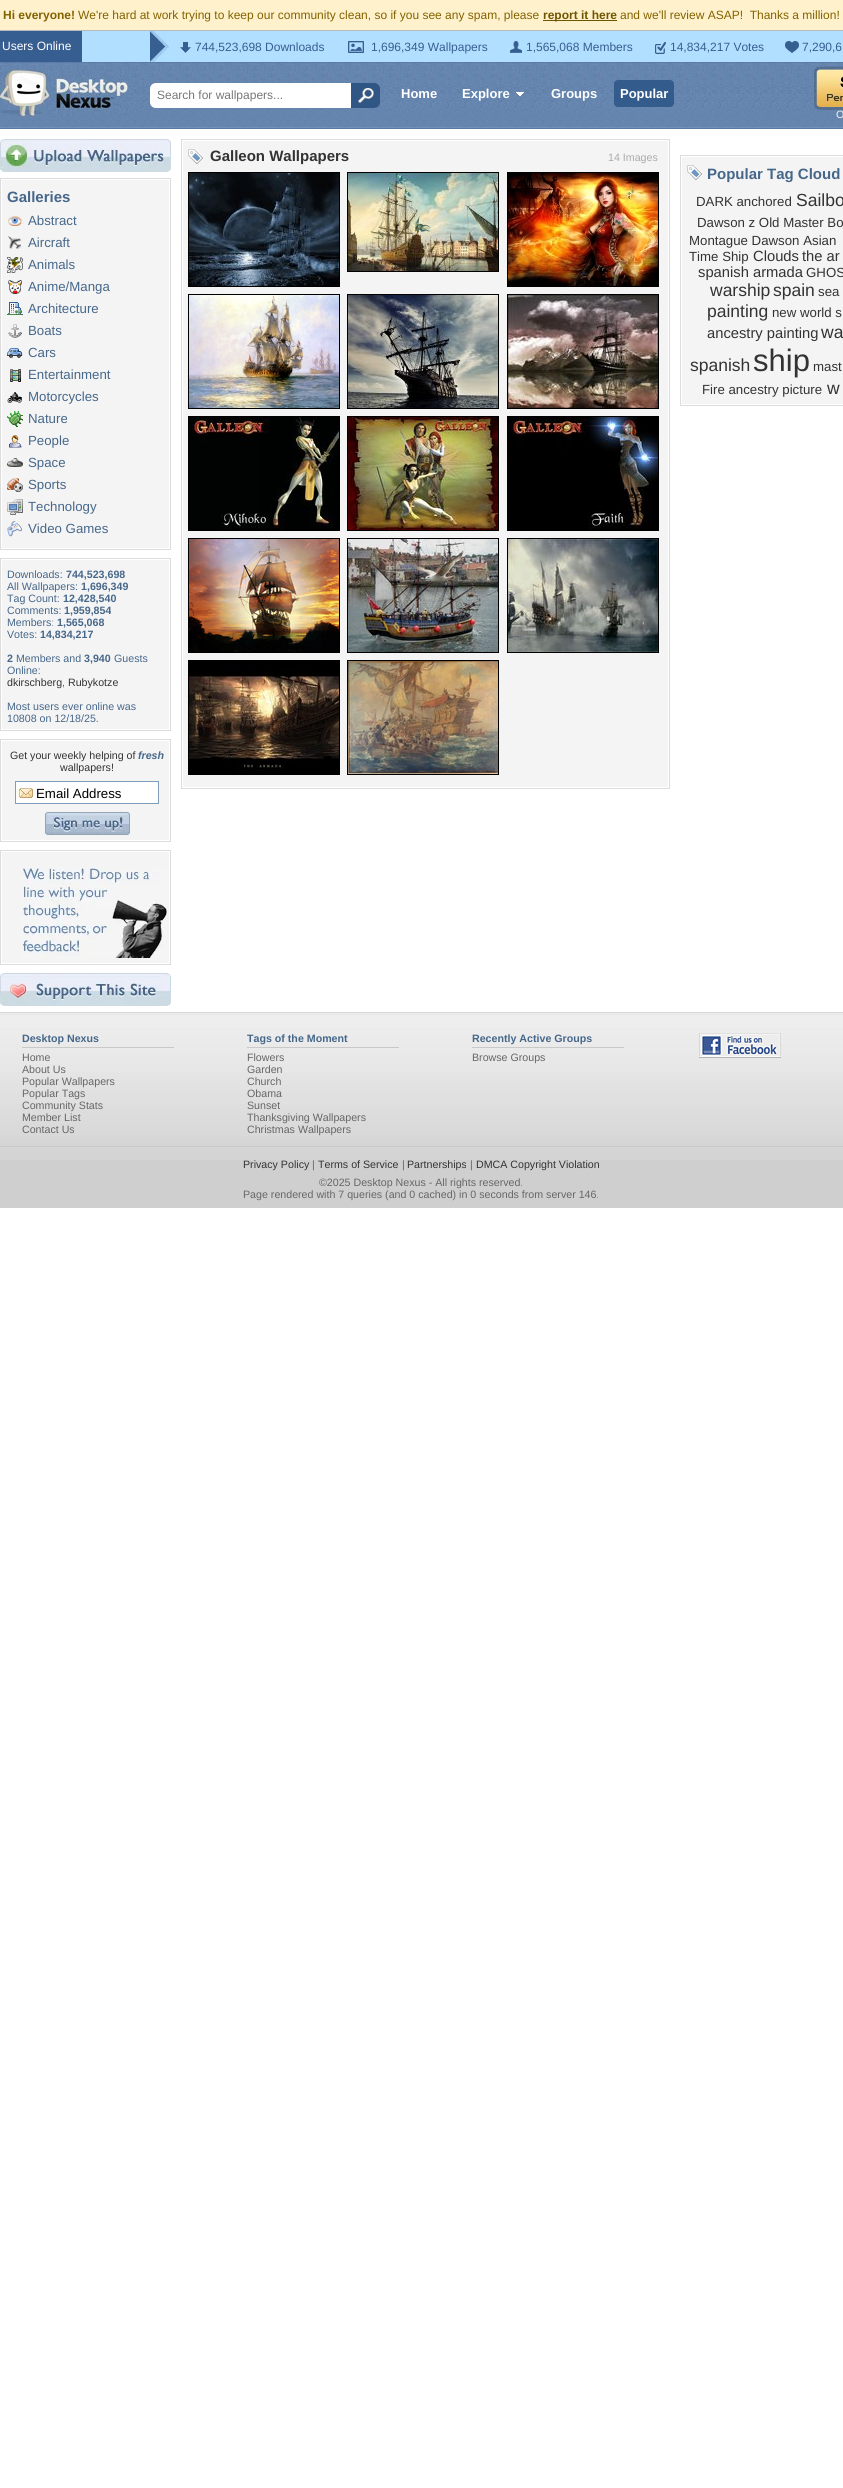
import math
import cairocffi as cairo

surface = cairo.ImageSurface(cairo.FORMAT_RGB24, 843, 2488)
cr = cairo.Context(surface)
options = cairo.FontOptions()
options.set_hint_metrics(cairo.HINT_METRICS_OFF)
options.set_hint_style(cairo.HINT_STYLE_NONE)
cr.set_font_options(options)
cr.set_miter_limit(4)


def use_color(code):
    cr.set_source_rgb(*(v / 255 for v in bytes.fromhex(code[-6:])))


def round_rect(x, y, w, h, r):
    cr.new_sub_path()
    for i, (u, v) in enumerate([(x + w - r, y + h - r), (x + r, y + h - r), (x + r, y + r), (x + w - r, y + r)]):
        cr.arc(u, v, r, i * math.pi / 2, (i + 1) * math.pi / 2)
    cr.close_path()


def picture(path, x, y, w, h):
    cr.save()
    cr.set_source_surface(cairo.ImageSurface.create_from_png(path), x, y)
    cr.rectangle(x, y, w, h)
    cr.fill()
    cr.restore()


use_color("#ffffff")
cr.paint()
use_color("#fff1cb")
cr.rectangle(0, 0, 843, 30)
cr.fill()
cr.select_font_face("Liberation Sans", cairo.FONT_SLANT_NORMAL, cairo.FONT_WEIGHT_BOLD)
cr.set_font_size(12)
use_color("#826200")
cr.move_to(3, 19)
cr.show_text("Hi everyone!")
cr.select_font_face("Liberation Sans")
cr.move_to(78, 19)
cr.show_text("We're hard at work trying to keep our community clean, so if you see any spam, please")
use_color("#705500")
cr.rectangle(543, 20, 74, 1)
cr.fill()
cr.select_font_face("Liberation Sans", cairo.FONT_SLANT_NORMAL, cairo.FONT_WEIGHT_BOLD)
cr.move_to(543, 19)
cr.show_text("report it here")
cr.select_font_face("Liberation Sans")
use_color("#826200")
cr.move_to(620, 19)
cr.show_text("and we'll review ASAP!  Thanks a million!")
use_color("#b1dfff")
cr.rectangle(82, 31, 761, 31)
cr.fill()
use_color("#b6bac0")
cr.rectangle(0, 30, 843, 1)
cr.fill()
use_color("#375e90")
cr.rectangle(0, 31, 82, 31)
cr.fill()
use_color("#ffffff")
cr.move_to(2, 50)
cr.show_text("Users Online")
picture("img1.png", 150, 31, 19, 31)
picture("img2.png", 180, 42, 11, 11)
use_color("#375e90")
cr.move_to(195, 51)
cr.show_text("744,523,698 Downloads")
picture("img3.png", 348, 41, 16, 12)
cr.move_to(371, 51)
cr.show_text("1,696,349 Wallpapers")
picture("img4.png", 510, 41, 12, 12)
cr.move_to(526, 51)
cr.show_text("1,565,068 Members")
picture("img5.png", 655, 42, 11, 12)
cr.move_to(670, 51)
cr.show_text("14,834,217 Votes")
picture("img6.png", 785, 41, 14, 12)
cr.move_to(802, 51)
cr.show_text("7,290,6")
picture("img7.png", 0, 62, 843, 67)
picture("img8.png", 0, 70, 128, 46)
use_color("#ffffff")
cr.new_path()
cr.move_to(156, 83)
cr.line_to(367, 83)
cr.line_to(367, 108)
cr.line_to(156, 108)
cr.curve_to(152.5, 108, 150, 105.5, 150, 102)
cr.line_to(150, 89)
cr.curve_to(150, 85.5, 152.5, 83, 156, 83)
cr.close_path()
cr.fill()
use_color("#777777")
cr.move_to(157, 99)
cr.show_text("Search for wallpapers...")
use_color("#305686")
cr.new_path()
cr.move_to(351, 83)
cr.line_to(374, 83)
cr.curve_to(377.5, 83, 380, 85.5, 380, 89)
cr.line_to(380, 102)
cr.curve_to(380, 105.5, 377.5, 108, 374, 108)
cr.line_to(351, 108)
cr.close_path()
cr.fill()
picture("img9.png", 358, 88, 16, 15)
cr.select_font_face("Liberation Sans", cairo.FONT_SLANT_NORMAL, cairo.FONT_WEIGHT_BOLD)
cr.set_font_size(13)
use_color("#ffffff")
cr.move_to(401, 98)
cr.show_text("Home")
cr.move_to(462, 98)
cr.show_text("Explore")
picture("img10.png", 515, 92, 10, 5)
cr.move_to(551, 98)
cr.show_text("Groups")
use_color("#335b8b")
round_rect(614, 80, 60, 27, 4)
cr.fill()
use_color("#ffffff")
cr.move_to(620, 98)
cr.show_text("Popular")
picture("img11.png", 814, 66, 29, 44)
cr.select_font_face("Liberation Sans")
cr.set_font_size(10.65)
use_color("#f4f4f4")
cr.move_to(836, 118)
cr.show_text("O")
cr.rectangle(181.5, 139.5, 488, 649)
use_color("#dcdcdc")
cr.set_line_width(1)
cr.stroke()
use_color("#f4f4f4")
cr.rectangle(183, 141, 485, 646)
cr.fill()
picture("img12.png", 188, 149, 15, 16)
cr.select_font_face("Liberation Sans", cairo.FONT_SLANT_NORMAL, cairo.FONT_WEIGHT_BOLD)
cr.set_font_size(15)
use_color("#333333")
cr.move_to(210, 161)
cr.show_text("Galleon Wallpapers")
cr.select_font_face("Liberation Sans")
cr.set_font_size(10.65)
use_color("#aaaaaa")
cr.move_to(608, 161)
cr.show_text("14 Images")
cr.rectangle(188.5, 172.5, 151, 114)
use_color("#000000")
cr.stroke()
picture("img13.png", 189, 173, 150, 113)
cr.rectangle(347.5, 172.5, 151, 99)
cr.stroke()
picture("img14.png", 348, 173, 150, 98)
cr.rectangle(507.5, 172.5, 151, 114)
cr.stroke()
picture("img15.png", 508, 173, 150, 113)
cr.rectangle(188.5, 294.5, 151, 114)
cr.stroke()
picture("img16.png", 189, 295, 150, 113)
cr.rectangle(347.5, 294.5, 151, 114)
cr.stroke()
picture("img17.png", 348, 295, 150, 113)
cr.rectangle(507.5, 294.5, 151, 114)
cr.stroke()
picture("img18.png", 508, 295, 150, 113)
cr.rectangle(188.5, 416.5, 151, 114)
cr.stroke()
picture("img19.png", 189, 417, 150, 113)
cr.rectangle(347.5, 416.5, 151, 114)
cr.stroke()
picture("img20.png", 348, 417, 150, 113)
cr.rectangle(507.5, 416.5, 151, 114)
cr.stroke()
picture("img21.png", 508, 417, 150, 113)
cr.rectangle(188.5, 538.5, 151, 114)
cr.stroke()
picture("img22.png", 189, 539, 150, 113)
cr.rectangle(347.5, 538.5, 151, 114)
cr.stroke()
picture("img23.png", 348, 539, 150, 113)
cr.rectangle(507.5, 538.5, 151, 114)
cr.stroke()
picture("img24.png", 508, 539, 150, 113)
cr.rectangle(188.5, 660.5, 151, 114)
cr.stroke()
picture("img25.png", 189, 661, 150, 113)
cr.rectangle(347.5, 660.5, 151, 114)
cr.stroke()
picture("img26.png", 348, 661, 150, 113)
picture("img27.png", 0, 139, 171, 33)
cr.rectangle(0.5, 178.5, 170, 371)
use_color("#dcdcdc")
cr.stroke()
use_color("#f4f4f4")
cr.rectangle(2, 180, 167, 368)
cr.fill()
cr.select_font_face("Liberation Sans", cairo.FONT_SLANT_NORMAL, cairo.FONT_WEIGHT_BOLD)
cr.set_font_size(15)
use_color("#46678a")
cr.move_to(7, 202)
cr.show_text("Galleries")
picture("img28.png", 8, 216, 14, 10)
cr.select_font_face("Liberation Sans")
cr.set_font_size(13.25)
cr.move_to(28, 225)
cr.show_text("Abstract")
picture("img29.png", 8, 236, 13, 13)
cr.move_to(28, 247)
cr.show_text("Aircraft")
picture("img30.png", 7, 257, 16, 16)
cr.move_to(28, 269)
cr.show_text("Animals")
picture("img31.png", 8, 280, 14, 14)
cr.move_to(28, 291)
cr.show_text("Anime/Manga")
picture("img32.png", 7, 302, 16, 13)
cr.move_to(28, 313)
cr.show_text("Architecture")
picture("img33.png", 8, 324, 14, 14)
cr.move_to(28, 335)
cr.show_text("Boats")
picture("img34.png", 7, 348, 16, 10)
cr.move_to(28, 357)
cr.show_text("Cars")
picture("img35.png", 10, 369, 11, 13)
cr.move_to(28, 379)
cr.show_text("Entertainment")
picture("img36.png", 7, 391, 16, 12)
cr.move_to(28, 401)
cr.show_text("Motorcycles")
picture("img37.png", 7, 411, 16, 16)
cr.move_to(28, 423)
cr.show_text("Nature")
picture("img38.png", 9, 435, 13, 13)
cr.move_to(28, 445)
cr.show_text("People")
picture("img39.png", 7, 458, 16, 9)
cr.move_to(28, 467)
cr.show_text("Space")
picture("img40.png", 7, 478, 16, 14)
cr.move_to(28, 489)
cr.show_text("Sports")
picture("img41.png", 7, 499, 16, 16)
cr.move_to(28, 511)
cr.show_text("Technology")
picture("img42.png", 7, 521, 15, 16)
cr.move_to(28, 533)
cr.show_text("Video Games")
cr.rectangle(0.5, 558.5, 170, 172)
use_color("#dcdcdc")
cr.stroke()
use_color("#f4f4f4")
cr.rectangle(2, 560, 167, 169)
cr.fill()
cr.set_font_size(10.65)
use_color("#46678a")
cr.move_to(7, 578)
cr.show_text("Downloads:")
cr.select_font_face("Liberation Sans", cairo.FONT_SLANT_NORMAL, cairo.FONT_WEIGHT_BOLD)
cr.move_to(66, 578)
cr.show_text("744,523,698")
cr.select_font_face("Liberation Sans")
cr.move_to(7, 590)
cr.show_text("All Wallpapers:")
cr.select_font_face("Liberation Sans", cairo.FONT_SLANT_NORMAL, cairo.FONT_WEIGHT_BOLD)
cr.move_to(81, 590)
cr.show_text("1,696,349")
cr.select_font_face("Liberation Sans")
cr.move_to(7, 602)
cr.show_text("Tag Count:")
cr.select_font_face("Liberation Sans", cairo.FONT_SLANT_NORMAL, cairo.FONT_WEIGHT_BOLD)
cr.move_to(63, 602)
cr.show_text("12,428,540")
cr.select_font_face("Liberation Sans")
cr.move_to(7, 614)
cr.show_text("Comments:")
cr.select_font_face("Liberation Sans", cairo.FONT_SLANT_NORMAL, cairo.FONT_WEIGHT_BOLD)
cr.move_to(64, 614)
cr.show_text("1,959,854")
cr.select_font_face("Liberation Sans")
cr.move_to(7, 626)
cr.show_text("Members:")
cr.select_font_face("Liberation Sans", cairo.FONT_SLANT_NORMAL, cairo.FONT_WEIGHT_BOLD)
cr.move_to(57, 626)
cr.show_text("1,565,068")
cr.select_font_face("Liberation Sans")
cr.move_to(7, 638)
cr.show_text("Votes:")
cr.select_font_face("Liberation Sans", cairo.FONT_SLANT_NORMAL, cairo.FONT_WEIGHT_BOLD)
cr.move_to(40, 638)
cr.show_text("14,834,217")
cr.move_to(7, 662)
cr.show_text("2")
cr.select_font_face("Liberation Sans")
cr.move_to(16, 662)
cr.show_text("Members and")
cr.select_font_face("Liberation Sans", cairo.FONT_SLANT_NORMAL, cairo.FONT_WEIGHT_BOLD)
cr.move_to(84, 662)
cr.show_text("3,940")
cr.select_font_face("Liberation Sans")
cr.move_to(114, 662)
cr.show_text("Guests")
cr.move_to(7, 674)
cr.show_text("Online:")
use_color("#333333")
cr.move_to(7, 686)
cr.show_text("dkirschberg")
use_color("#46678a")
cr.move_to(62, 686)
cr.show_text(",")
use_color("#333333")
cr.move_to(68, 686)
cr.show_text("Rubykotze")
use_color("#46678a")
cr.move_to(7, 710)
cr.show_text("Most users ever online was")
cr.move_to(7, 722)
cr.show_text("10808 on 12/18/25.")
cr.rectangle(0.5, 739.5, 170, 102)
use_color("#dcdcdc")
cr.stroke()
use_color("#f4f4f4")
cr.rectangle(2, 741, 167, 99)
cr.fill()
use_color("#333333")
cr.move_to(10, 759)
cr.show_text("Get your weekly helping of")
cr.select_font_face("Liberation Sans", cairo.FONT_SLANT_ITALIC, cairo.FONT_WEIGHT_BOLD)
use_color("#46678a")
cr.move_to(138, 759)
cr.show_text("fresh")
cr.select_font_face("Liberation Sans")
use_color("#333333")
cr.move_to(60, 771)
cr.show_text("wallpapers!")
use_color("#ffffff")
cr.rectangle(16, 782, 142, 21)
cr.fill()
picture("img43.png", 16, 788, 17, 10)
cr.rectangle(15.5, 781.5, 143, 22)
use_color("#7f9db9")
cr.stroke()
cr.set_font_size(13.25)
use_color("#000000")
cr.move_to(36, 798)
cr.show_text("Email Address")
picture("img44.png", 45, 812, 85, 23)
cr.rectangle(0.5, 850.5, 170, 114)
use_color("#dcdcdc")
cr.stroke()
use_color("#f4f4f4")
cr.rectangle(2, 852, 167, 111)
cr.fill()
picture("img45.png", 20, 867, 147, 91)
picture("img46.png", 0, 973, 171, 33)
cr.rectangle(680.5, 155.5, 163, 250)
use_color("#dcdcdc")
cr.stroke()
use_color("#f4f4f4")
cr.rectangle(682, 157, 161, 247)
cr.fill()
picture("img12.png", 687, 165, 15, 16)
cr.select_font_face("Liberation Sans", cairo.FONT_SLANT_NORMAL, cairo.FONT_WEIGHT_BOLD)
cr.set_font_size(15)
use_color("#46678a")
cr.move_to(707, 179)
cr.show_text("Popular Tag Cloud")
cr.select_font_face("Liberation Sans")
cr.set_font_size(13.25)
use_color("#333333")
cr.move_to(696, 206)
cr.show_text("DARK anchored")
cr.set_font_size(17.5)
cr.move_to(796, 206)
cr.show_text("Sailbo")
cr.set_font_size(13.25)
cr.move_to(697, 227)
cr.show_text("Dawson z Old Master Bo")
cr.move_to(689, 245)
cr.show_text("Montague Dawson Asian")
cr.move_to(689, 261)
cr.show_text("Time Ship")
cr.set_font_size(14.75)
cr.move_to(753, 261)
cr.show_text("Clouds")
cr.move_to(802, 261)
cr.show_text("the ar")
cr.move_to(698, 277)
cr.show_text("spanish armada")
cr.set_font_size(13.25)
cr.move_to(806, 277)
cr.show_text("GHOS")
cr.set_font_size(17.5)
cr.move_to(710, 296)
cr.show_text("warship")
cr.move_to(773, 296)
cr.show_text("spain")
cr.set_font_size(13.25)
cr.move_to(818, 296)
cr.show_text("sea")
cr.set_font_size(17.5)
cr.move_to(707, 317)
cr.show_text("painting")
cr.set_font_size(13.25)
cr.move_to(772, 317)
cr.show_text("new world s")
cr.set_font_size(14.75)
cr.move_to(707, 338)
cr.show_text("ancestry painting")
cr.set_font_size(17.5)
cr.move_to(821, 338)
cr.show_text("wa")
cr.move_to(690, 371)
cr.show_text("spanish")
cr.set_font_size(31)
cr.move_to(753, 371)
cr.show_text("ship")
cr.set_font_size(13.25)
cr.move_to(813, 371)
cr.show_text("mast")
cr.move_to(702, 394)
cr.show_text("Fire ancestry picture")
cr.set_font_size(17.5)
cr.move_to(827, 394)
cr.show_text("w")
use_color("#cfcfcf")
cr.rectangle(0, 1160, 843, 48)
cr.fill()
picture("img47.png", 0, 1012, 843, 148)
cr.select_font_face("Liberation Sans", cairo.FONT_SLANT_NORMAL, cairo.FONT_WEIGHT_BOLD)
cr.set_font_size(10.65)
use_color("#46678a")
cr.move_to(22, 1042)
cr.show_text("Desktop Nexus")
use_color("#c9c9c9")
cr.rectangle(22, 1047, 152, 1)
cr.fill()
cr.select_font_face("Liberation Sans")
use_color("#666666")
cr.move_to(22, 1061)
cr.show_text("Home")
cr.move_to(22, 1073)
cr.show_text("About Us")
cr.move_to(22, 1085)
cr.show_text("Popular Wallpapers")
cr.move_to(22, 1097)
cr.show_text("Popular Tags")
cr.move_to(22, 1109)
cr.show_text("Community Stats")
cr.move_to(22, 1121)
cr.show_text("Member List")
cr.move_to(22, 1133)
cr.show_text("Contact Us")
cr.select_font_face("Liberation Sans", cairo.FONT_SLANT_NORMAL, cairo.FONT_WEIGHT_BOLD)
use_color("#46678a")
cr.move_to(247, 1042)
cr.show_text("Tags of the Moment")
use_color("#c9c9c9")
cr.rectangle(247, 1047, 152, 1)
cr.fill()
cr.select_font_face("Liberation Sans")
use_color("#666666")
cr.move_to(247, 1061)
cr.show_text("Flowers")
cr.move_to(247, 1073)
cr.show_text("Garden")
cr.move_to(247, 1085)
cr.show_text("Church")
cr.move_to(247, 1097)
cr.show_text("Obama")
cr.move_to(247, 1109)
cr.show_text("Sunset")
cr.move_to(247, 1121)
cr.show_text("Thanksgiving Wallpapers")
cr.move_to(247, 1133)
cr.show_text("Christmas Wallpapers")
cr.select_font_face("Liberation Sans", cairo.FONT_SLANT_NORMAL, cairo.FONT_WEIGHT_BOLD)
use_color("#46678a")
cr.move_to(472, 1042)
cr.show_text("Recently Active Groups")
use_color("#c9c9c9")
cr.rectangle(472, 1047, 152, 1)
cr.fill()
cr.select_font_face("Liberation Sans")
use_color("#666666")
cr.move_to(472, 1061)
cr.show_text("Browse Groups")
picture("img48.png", 699, 1033, 82, 25)
use_color("#c9c9c9")
cr.rectangle(0, 1146, 843, 1)
cr.fill()
use_color("#333333")
cr.move_to(243, 1168)
cr.show_text("Privacy Policy")
use_color("#666666")
cr.move_to(312, 1168)
cr.show_text("|")
use_color("#333333")
cr.move_to(318, 1168)
cr.show_text("Terms of Service")
use_color("#666666")
cr.move_to(402, 1168)
cr.show_text("|")
use_color("#333333")
cr.move_to(407, 1168)
cr.show_text("Partnerships")
use_color("#666666")
cr.move_to(470, 1168)
cr.show_text("|")
use_color("#333333")
cr.move_to(476, 1168)
cr.show_text("DMCA Copyright Violation")
use_color("#666666")
cr.move_to(319, 1186)
cr.show_text("©2025 Desktop Nexus - All rights reserved.")
cr.move_to(243, 1198)
cr.show_text("Page rendered with 7 queries (and 0 cached) in 0 seconds from server 146.")
surface.write_to_png("result.png")
